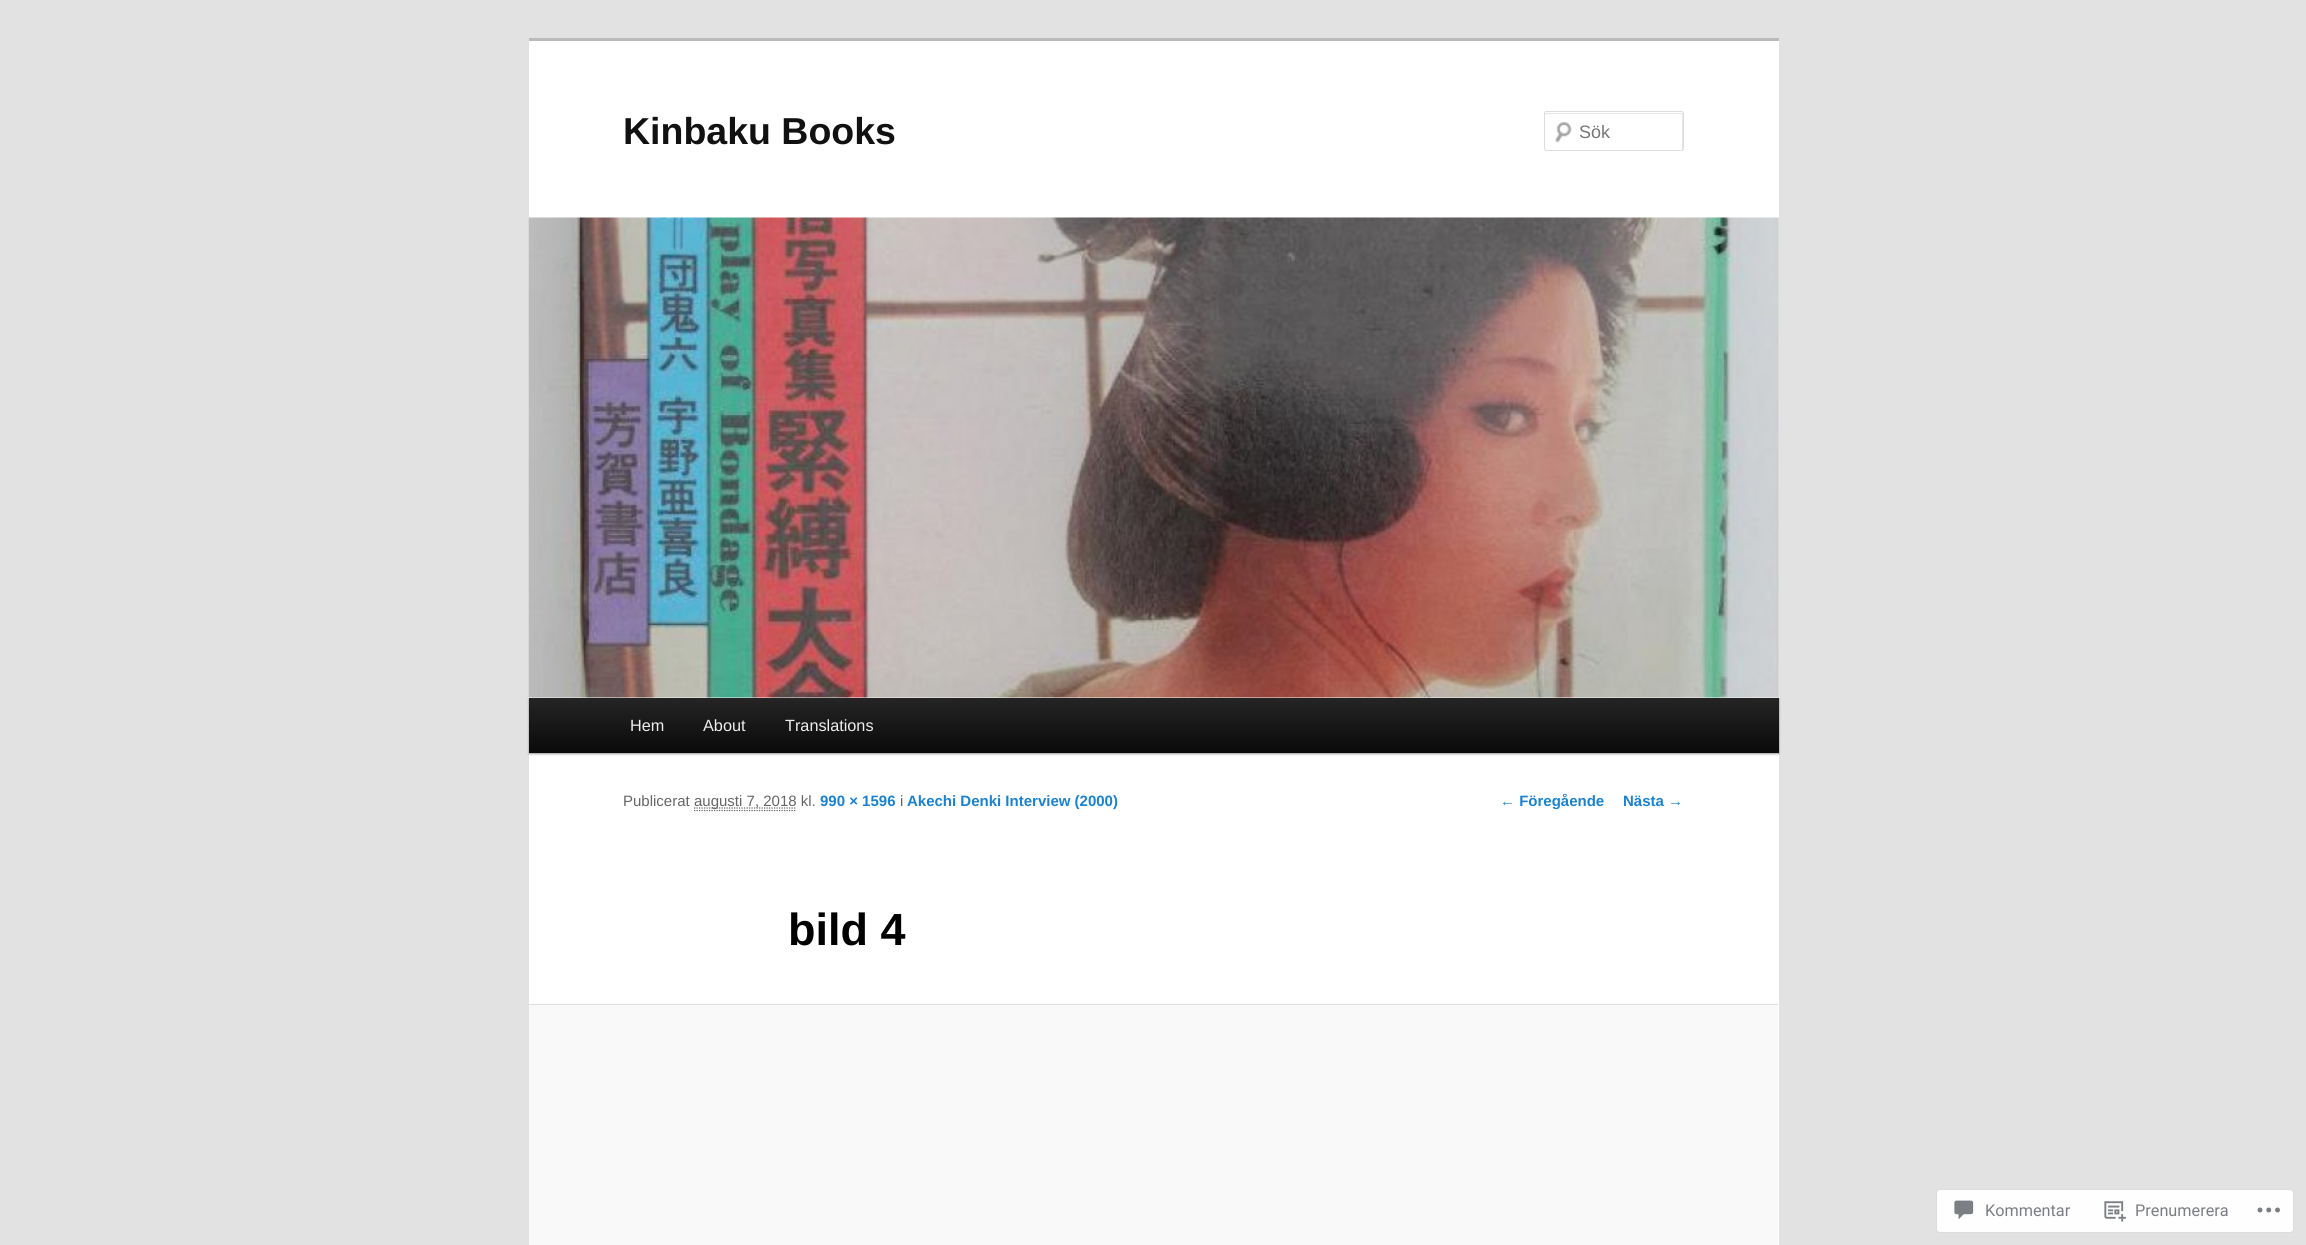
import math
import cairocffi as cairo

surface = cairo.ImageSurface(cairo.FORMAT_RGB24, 2306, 1245)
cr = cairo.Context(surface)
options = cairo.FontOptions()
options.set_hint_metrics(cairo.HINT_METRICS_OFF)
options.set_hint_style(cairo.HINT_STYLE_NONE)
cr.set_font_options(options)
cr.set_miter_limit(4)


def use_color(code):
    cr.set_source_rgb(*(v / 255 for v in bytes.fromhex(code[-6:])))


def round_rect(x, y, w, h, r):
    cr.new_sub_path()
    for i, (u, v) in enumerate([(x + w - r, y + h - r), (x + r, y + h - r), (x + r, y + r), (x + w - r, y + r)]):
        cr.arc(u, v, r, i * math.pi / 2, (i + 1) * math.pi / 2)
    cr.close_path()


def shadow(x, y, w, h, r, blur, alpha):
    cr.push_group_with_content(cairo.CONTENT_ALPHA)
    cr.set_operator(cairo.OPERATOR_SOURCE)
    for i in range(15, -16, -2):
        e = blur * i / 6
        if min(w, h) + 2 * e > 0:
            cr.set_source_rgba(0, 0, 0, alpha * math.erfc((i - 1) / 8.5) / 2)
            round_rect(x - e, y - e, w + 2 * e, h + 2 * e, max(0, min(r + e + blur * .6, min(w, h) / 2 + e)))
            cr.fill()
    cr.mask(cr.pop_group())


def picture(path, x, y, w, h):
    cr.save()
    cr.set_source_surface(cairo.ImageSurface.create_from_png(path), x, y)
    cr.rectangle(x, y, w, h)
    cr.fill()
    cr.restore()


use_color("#e2e2e2")
cr.paint()
use_color("#ffffff")
cr.rectangle(529, 41, 1250, 1204)
cr.fill()
use_color("#bbbbbb")
cr.rectangle(529, 38, 1250, 3)
cr.fill()
cr.select_font_face("Liberation Sans", cairo.FONT_SLANT_NORMAL, cairo.FONT_WEIGHT_BOLD)
cr.set_font_size(37.5)
use_color("#111111")
cr.move_to(623, 144)
cr.show_text("Kinbaku Books")
picture("img1.png", 1555, 121, 17, 22)
use_color("#e6e6e6")
cr.new_path()
cr.move_to(1546, 114)
cr.line_to(1681, 114)
cr.curve_to(1682, 114, 1682, 114, 1682, 115)
cr.line_to(1682, 150)
cr.curve_to(1683, 150, 1683, 150, 1683, 149)
cr.line_to(1683, 114)
cr.curve_to(1683, 113, 1683, 113, 1682, 113)
cr.line_to(1546, 113)
cr.curve_to(1545, 113, 1545, 113, 1545, 114)
cr.line_to(1545, 115)
cr.close_path()
cr.fill()
round_rect(1544.5, 111.5, 139, 39, 2)
use_color("#dddddd")
cr.set_line_width(1)
cr.stroke()
cr.select_font_face("Liberation Sans")
cr.set_font_size(18)
use_color("#757575")
cr.move_to(1579, 138)
cr.show_text("Sök")
use_color("#000000")
shadow(529, 699, 1250, 55, 0, 1, 0.4)
picture("img2.png", 528, 217, 1251, 481)
gradient = cairo.LinearGradient(1154, 697, 1154, 753)
gradient.add_color_stop_rgba(0, 0.145, 0.145, 0.145, 1)
gradient.add_color_stop_rgba(1, 0.039, 0.039, 0.039, 1)
cr.set_source(gradient)
cr.rectangle(529, 698, 1250, 55)
cr.fill()
cr.set_font_size(16.25)
use_color("#eeeeee")
cr.move_to(630, 731)
cr.show_text("Hem")
cr.move_to(703, 731)
cr.show_text("About")
cr.move_to(785, 731)
cr.show_text("Translations")
cr.set_font_size(15)
use_color("#666666")
cr.move_to(623, 806)
cr.show_text("Publicerat")
cr.new_path()
cr.move_to(694, 810.5)
cr.line_to(796, 810.5)
cr.set_line_width(1.2)
cr.set_dash([1.25, 1.25])
cr.stroke()
cr.new_path()
cr.move_to(694, 808)
cr.line_to(796.5, 808)
cr.stroke()
cr.move_to(694, 806)
cr.show_text("augusti 7, 2018 kl.")
cr.select_font_face("Liberation Sans", cairo.FONT_SLANT_NORMAL, cairo.FONT_WEIGHT_BOLD)
use_color("#1982d1")
cr.move_to(820, 806)
cr.show_text("990 × 1596")
cr.select_font_face("Liberation Sans")
use_color("#666666")
cr.move_to(900, 806)
cr.show_text("i")
cr.select_font_face("Liberation Sans", cairo.FONT_SLANT_NORMAL, cairo.FONT_WEIGHT_BOLD)
use_color("#1982d1")
cr.move_to(907, 806)
cr.show_text("Akechi Denki Interview (2000)")
cr.set_font_size(45)
use_color("#000000")
cr.move_to(788, 945)
cr.show_text("bild 4")
use_color("#f9f9f9")
cr.rectangle(529, 1005, 1249, 240)
cr.fill()
use_color("#dddddd")
cr.rectangle(529, 1004, 1249, 1)
cr.fill()
cr.set_font_size(15)
use_color("#1982d1")
cr.move_to(1500, 806)
cr.show_text("← Föregående")
cr.move_to(1623, 806)
cr.show_text("Nästa →")
use_color("#fefefe")
round_rect(1936.5, 1189.5, 357, 43, 3.5)
cr.fill_preserve()
use_color("#dcdcde")
cr.set_line_width(1)
cr.set_dash([])
cr.stroke()
picture("img3.png", 1954, 1200, 20, 20)
cr.select_font_face("Roboto")
cr.set_font_size(16.25)
use_color("#7a7e84")
cr.move_to(1985, 1216)
cr.show_text("Kommentar")
picture("img4.png", 2104, 1201, 22, 21)
cr.move_to(2135, 1216)
cr.show_text("Prenumerera")
picture("img5.png", 2257, 1207, 23, 6)
surface.write_to_png("result.png")
